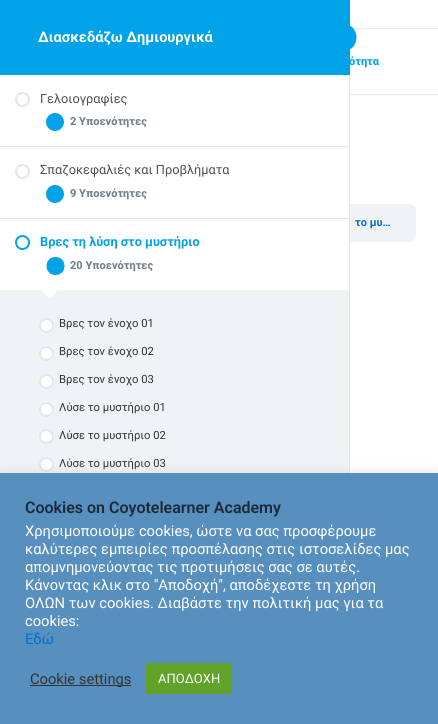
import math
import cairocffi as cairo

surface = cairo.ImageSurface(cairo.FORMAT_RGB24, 438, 724)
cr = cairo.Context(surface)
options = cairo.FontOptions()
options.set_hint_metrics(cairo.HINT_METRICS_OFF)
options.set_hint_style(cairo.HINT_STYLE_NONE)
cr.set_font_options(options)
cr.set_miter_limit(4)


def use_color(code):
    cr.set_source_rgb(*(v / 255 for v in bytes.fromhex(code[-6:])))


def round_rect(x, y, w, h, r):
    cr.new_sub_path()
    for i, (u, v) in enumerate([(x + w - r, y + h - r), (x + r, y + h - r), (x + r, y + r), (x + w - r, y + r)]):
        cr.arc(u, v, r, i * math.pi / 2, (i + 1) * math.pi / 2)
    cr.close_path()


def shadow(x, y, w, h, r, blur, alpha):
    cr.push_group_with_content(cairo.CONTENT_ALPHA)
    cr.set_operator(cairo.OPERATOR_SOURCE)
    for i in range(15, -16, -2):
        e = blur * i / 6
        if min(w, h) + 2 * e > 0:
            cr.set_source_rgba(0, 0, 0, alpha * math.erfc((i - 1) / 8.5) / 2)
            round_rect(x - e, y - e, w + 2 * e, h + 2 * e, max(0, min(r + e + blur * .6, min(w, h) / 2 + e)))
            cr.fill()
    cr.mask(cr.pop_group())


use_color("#ffffff")
cr.paint()
use_color("#f0f3f6")
round_rect(22, 204, 394, 38, 6)
cr.fill()
use_color("#ffffff")
cr.rectangle(22, 204, 327, 38)
cr.fill()
use_color("#e2e7ed")
cr.rectangle(349, 75, 1, 398)
cr.fill()
use_color("#00a2e8")
cr.rectangle(0, 0, 350, 75)
cr.fill()
cr.select_font_face("Roboto", cairo.FONT_SLANT_NORMAL, cairo.FONT_WEIGHT_BOLD)
cr.set_font_size(14.6)
use_color("#ffffff")
cr.move_to(38, 42)
cr.show_text("Διασκεδάζω Δημιουργικά")
use_color("#efefef")
cr.rectangle(352, 28, 86, 1)
cr.fill()
use_color("#00a2e8")
cr.new_path()
cr.move_to(344, 24)
cr.curve_to(351, 24, 356.5, 30, 356.5, 37.5)
cr.curve_to(356.5, 45, 351, 51, 344, 51)
cr.curve_to(337, 51, 331.5, 45, 331.5, 37.5)
cr.curve_to(331.5, 30, 337, 24, 344, 24)
cr.close_path()
cr.fill()
use_color("#e2e7ed")
cr.rectangle(0, 146, 349, 1)
cr.fill()
cr.arc(22.5, 99.5, 6.5, 0, 2 * math.pi)
cr.stroke()
cr.select_font_face("Roboto")
cr.set_font_size(12.75)
use_color("#495255")
cr.move_to(40, 103)
cr.show_text("Γελοιογραφίες")
use_color("#00a2e8")
cr.new_path()
cr.arc(55, 122, 9, 0, 2 * math.pi)
cr.fill()
cr.select_font_face("Roboto ExtraBold")
cr.set_font_size(11)
use_color("#728188")
cr.move_to(70, 125)
cr.show_text("2 Υποενότητες")
use_color("#e2e7ed")
cr.rectangle(0, 218, 349, 1)
cr.fill()
cr.arc(22.5, 171.5, 6.5, 0, 2 * math.pi)
cr.stroke()
cr.select_font_face("Roboto")
cr.set_font_size(12.75)
use_color("#495255")
cr.move_to(40, 174)
cr.show_text("Σπαζοκεφαλιές και Προβλήματα")
use_color("#00a2e8")
cr.new_path()
cr.arc(55, 194, 9, 0, 2 * math.pi)
cr.fill()
cr.select_font_face("Roboto ExtraBold")
cr.set_font_size(11)
use_color("#728188")
cr.move_to(70, 197)
cr.show_text("9 Υποενότητες")
cr.new_path()
cr.arc(22.5, 242.5, 6.5, 0, 2 * math.pi)
use_color("#00a2e8")
cr.stroke()
cr.select_font_face("Roboto", cairo.FONT_SLANT_NORMAL, cairo.FONT_WEIGHT_BOLD)
cr.set_font_size(12.75)
cr.move_to(40, 246)
cr.show_text("Βρες τη λύση στο μυστήριο")
cr.new_path()
cr.move_to(55.5, 275)
cr.curve_to(43.5, 275, 43.5, 257, 55.5, 257)
cr.curve_to(67.5, 257, 67.5, 275, 55.5, 275)
cr.close_path()
cr.fill()
cr.select_font_face("Roboto ExtraBold")
cr.set_font_size(11)
use_color("#728188")
cr.move_to(70, 269)
cr.show_text("20 Υποενότητες")
use_color("#f0f3f6")
cr.rectangle(0, 290, 349, 183)
cr.fill()
cr.save()
cr.rectangle(0, 290, 349, 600)
cr.clip()
use_color("#ffffff")
cr.new_path()
cr.move_to(40.5, 289)
cr.line_to(49.5, 280)
cr.line_to(58.5, 289)
cr.line_to(49.5, 298.5)
cr.close_path()
cr.fill()
cr.restore()
use_color("#ffffff")
cr.arc(46.5, 325.5, 6.5, 0, 2 * math.pi)
cr.fill_preserve()
use_color("#e2e7ed")
cr.stroke()
cr.select_font_face("Roboto")
cr.set_font_size(11.25)
use_color("#333333")
cr.move_to(59, 327)
cr.show_text("Βρες τον ένοχο 01")
use_color("#ffffff")
cr.new_path()
cr.arc(46.5, 353.5, 6.5, 0, 2 * math.pi)
cr.fill_preserve()
use_color("#e2e7ed")
cr.stroke()
use_color("#333333")
cr.move_to(59, 355)
cr.show_text("Βρες τον ένοχο 02")
use_color("#ffffff")
cr.new_path()
cr.arc(46.5, 381.5, 6.5, 0, 2 * math.pi)
cr.fill_preserve()
use_color("#e2e7ed")
cr.stroke()
use_color("#333333")
cr.move_to(59, 383)
cr.show_text("Βρες τον ένοχο 03")
use_color("#ffffff")
cr.new_path()
cr.arc(46.5, 409.5, 6.5, 0, 2 * math.pi)
cr.fill_preserve()
use_color("#e2e7ed")
cr.stroke()
use_color("#333333")
cr.move_to(59, 411)
cr.show_text("Λύσε το μυστήριο 01")
use_color("#ffffff")
cr.new_path()
cr.arc(46.5, 436.5, 6.5, 0, 2 * math.pi)
cr.fill_preserve()
use_color("#e2e7ed")
cr.stroke()
use_color("#333333")
cr.move_to(59, 439)
cr.show_text("Λύσε το μυστήριο 02")
use_color("#ffffff")
cr.new_path()
cr.arc(46.5, 464.5, 6.5, 0, 2 * math.pi)
cr.fill_preserve()
use_color("#e2e7ed")
cr.stroke()
use_color("#333333")
cr.move_to(59, 467)
cr.show_text("Λύσε το μυστήριο 03")
use_color("#e2e7ed")
cr.rectangle(350, 94, 88, 1)
cr.fill()
cr.select_font_face("Roboto ExtraBold")
cr.set_font_size(11)
use_color("#00a2e8")
cr.move_to(349, 65)
cr.show_text("ότητα")
cr.select_font_face("Roboto", cairo.FONT_SLANT_NORMAL, cairo.FONT_WEIGHT_BOLD)
use_color("#046bd2")
cr.move_to(355, 226)
cr.show_text("το μυ…")
use_color("#acabab")
shadow(0, 472, 438, 251, 0, 5, 0.3)
use_color("#578fbf")
cr.rectangle(0, 473, 438, 251)
cr.fill()
cr.select_font_face("Roboto SemiBold")
cr.set_font_size(16)
use_color("#1e293b")
cr.move_to(25, 513)
cr.show_text("Cookies on Coyotelearner Academy")
cr.select_font_face("Roboto")
cr.set_font_size(14.7)
use_color("#ffffff")
cr.move_to(25, 536)
cr.show_text("Χρησιμοποιούμε cookies, ώστε να σας προσφέρουμε")
cr.move_to(25, 554)
cr.show_text("καλύτερες εμπειρίες προσπέλασης στις ιστοσελίδες μας")
cr.move_to(25, 572)
cr.show_text("απομνημονεύοντας τις προτιμήσεις σας σε αυτές.")
cr.move_to(25, 590)
cr.show_text("Κάνοντας κλικ στο \"Αποδοχή\", αποδέχεστε τη χρήση")
cr.move_to(25, 608)
cr.show_text("ΟΛΩΝ των cookies. Διαβάστε την πολιτική μας για τα")
cr.move_to(25, 626)
cr.show_text("cookies:")
use_color("#046bd2")
cr.move_to(25, 644)
cr.show_text("Εδώ")
use_color("#333333")
cr.rectangle(30, 685, 101, 1)
cr.fill()
cr.move_to(30, 684)
cr.show_text("Cookie settings")
use_color("#61a229")
cr.rectangle(146, 663, 86, 31)
cr.fill()
cr.set_font_size(13)
use_color("#ffffff")
cr.move_to(158, 683)
cr.show_text("ΑΠΟΔΟΧΗ")
surface.write_to_png("result.png")
